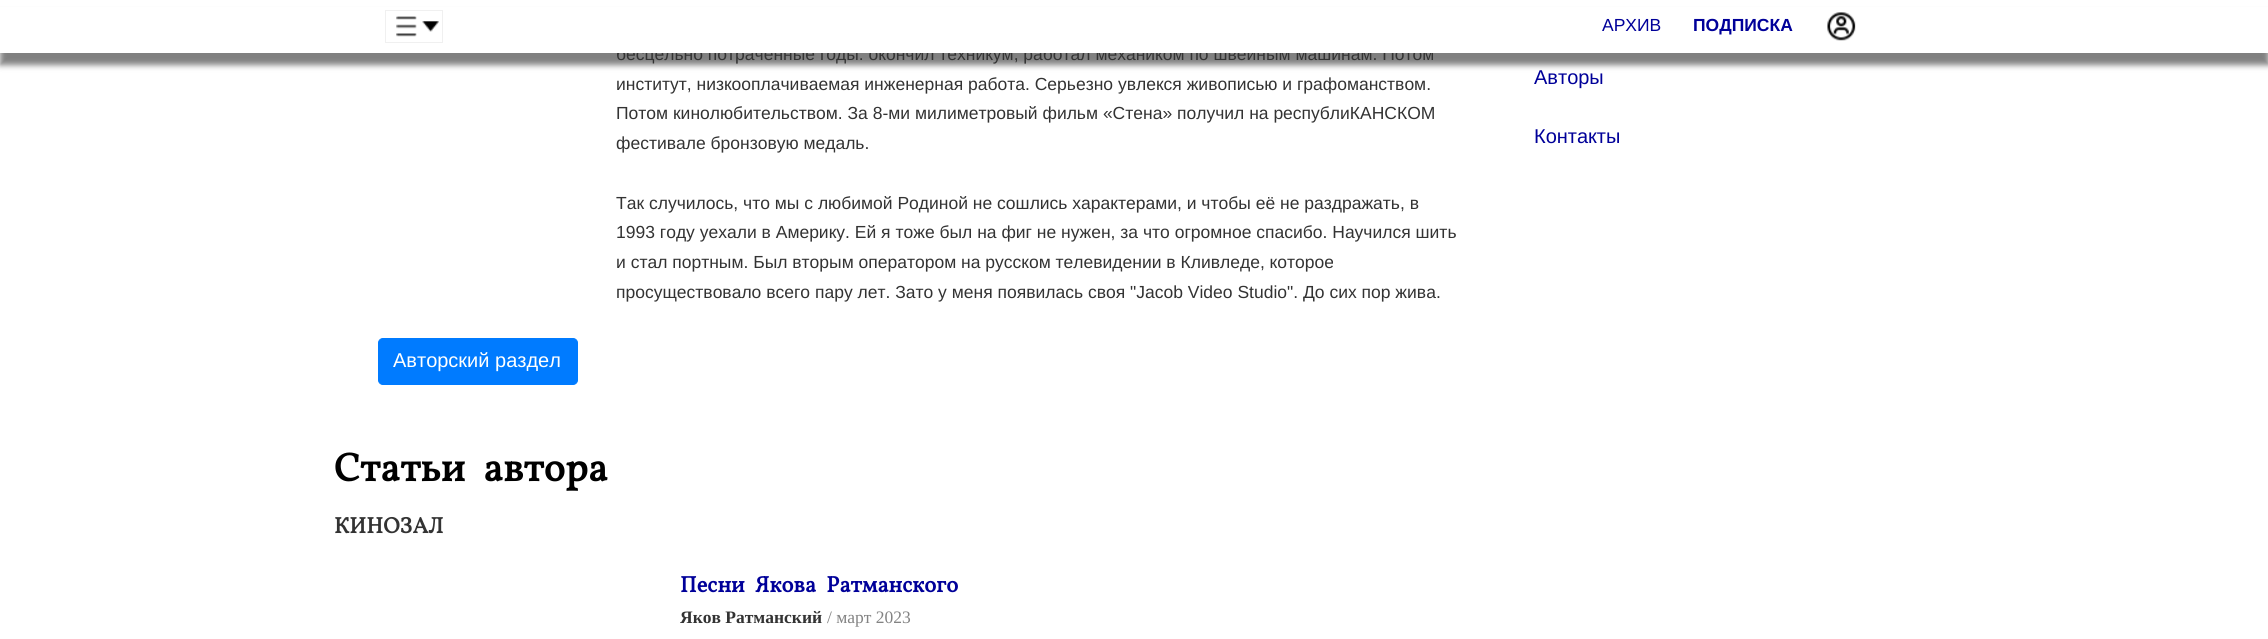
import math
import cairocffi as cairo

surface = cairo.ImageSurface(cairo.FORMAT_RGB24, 2268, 639)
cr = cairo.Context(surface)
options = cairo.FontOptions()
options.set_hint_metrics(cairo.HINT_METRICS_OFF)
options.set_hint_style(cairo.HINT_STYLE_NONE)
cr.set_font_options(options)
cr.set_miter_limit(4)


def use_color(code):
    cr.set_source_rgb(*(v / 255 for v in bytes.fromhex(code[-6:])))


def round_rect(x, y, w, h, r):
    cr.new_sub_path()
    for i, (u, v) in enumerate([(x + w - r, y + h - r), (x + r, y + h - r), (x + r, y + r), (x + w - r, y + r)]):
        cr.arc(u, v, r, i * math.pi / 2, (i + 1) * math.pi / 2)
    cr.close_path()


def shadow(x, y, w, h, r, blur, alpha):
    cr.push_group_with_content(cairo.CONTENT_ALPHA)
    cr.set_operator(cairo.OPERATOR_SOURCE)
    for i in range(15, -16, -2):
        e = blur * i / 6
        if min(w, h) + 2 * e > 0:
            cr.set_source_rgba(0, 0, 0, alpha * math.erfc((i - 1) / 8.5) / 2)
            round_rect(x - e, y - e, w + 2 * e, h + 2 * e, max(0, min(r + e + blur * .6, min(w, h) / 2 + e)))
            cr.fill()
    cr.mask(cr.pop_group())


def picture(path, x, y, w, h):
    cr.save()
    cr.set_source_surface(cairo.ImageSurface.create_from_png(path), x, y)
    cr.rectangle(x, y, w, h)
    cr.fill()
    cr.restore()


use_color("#ffffff")
cr.paint()
use_color("#000000")
shadow(0, 13, 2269, 52, 0, 3, 0.5)
cr.select_font_face("Liberation Sans")
cr.set_font_size(17.5)
use_color("#333333")
cr.move_to(616, 60)
cr.show_text("бесцельно потраченные годы: окончил техникум, работал механиком по швейным машинам. Потом")
use_color("#ffffff")
cr.rectangle(0, 7, 2268, 46)
cr.fill()
picture("img1.png", 422, 21, 17, 11)
cr.rectangle(385.5, 10.5, 57, 32)
use_color("#f0f0f0")
cr.set_line_width(1)
cr.stroke()
picture("img2.png", 396, 16, 21, 21)
use_color("#000099")
cr.move_to(1602, 31)
cr.show_text("АРХИВ")
cr.select_font_face("Liberation Sans", cairo.FONT_SLANT_NORMAL, cairo.FONT_WEIGHT_BOLD)
cr.move_to(1693, 31)
cr.show_text("ПОДПИСКА")
picture("img3.png", 1827, 12, 29, 29)
cr.select_font_face("Liberation Sans")
use_color("#333333")
cr.move_to(616, 90)
cr.show_text("институт, низкооплачиваемая инженерная работа. Серьезно увлекся живописью и графоманством.")
cr.move_to(616, 119)
cr.show_text("Потом кинолюбительством. За 8-ми милиметровый фильм «Стена» получил на республиКАНСКОМ")
cr.move_to(616, 149)
cr.show_text("фестивале бронзовую медаль.")
cr.move_to(616, 209)
cr.show_text("Так случилось, что мы с любимой Родиной не сошлись характерами, и чтобы её не раздражать, в")
cr.move_to(616, 238)
cr.show_text("1993 году уехали в Америку. Ей я тоже был на фиг не нужен, за что огромное спасибо. Научился шить")
cr.move_to(616, 268)
cr.show_text("и стал портным. Был вторым оператором на русском телевидении в Кливледе, которое")
cr.move_to(616, 298)
cr.show_text("просуществовало всего пару лет. Зато у меня появилась своя \"Jacob Video Studio\". До сих пор жива.")
use_color("#007bff")
round_rect(378.5, 338.5, 199, 46, 4.5)
cr.fill_preserve()
cr.stroke()
cr.set_font_size(20)
use_color("#ffffff")
cr.move_to(393, 367)
cr.show_text("Авторский раздел")
cr.select_font_face("Vollkorn", cairo.FONT_SLANT_NORMAL, cairo.FONT_WEIGHT_BOLD)
cr.set_font_size(40)
use_color("#000000")
cr.move_to(334, 481)
cr.show_text("Статьи автора")
cr.set_font_size(22.5)
use_color("#333333")
cr.move_to(334, 533)
cr.show_text("КИНОЗАЛ")
use_color("#000099")
cr.move_to(680, 592)
cr.show_text("Песни Якова Ратманского")
cr.select_font_face("Liberation Serif", cairo.FONT_SLANT_NORMAL, cairo.FONT_WEIGHT_BOLD)
cr.set_font_size(17.5)
use_color("#333333")
cr.move_to(680, 623)
cr.show_text("Яков Ратманский")
cr.select_font_face("Liberation Serif")
use_color("#838383")
cr.move_to(827, 623)
cr.show_text("/ март 2023")
cr.select_font_face("Liberation Sans")
cr.set_font_size(20)
use_color("#000099")
cr.move_to(1534, 84)
cr.show_text("Авторы")
cr.move_to(1534, 143)
cr.show_text("Контакты")
surface.write_to_png("result.png")
